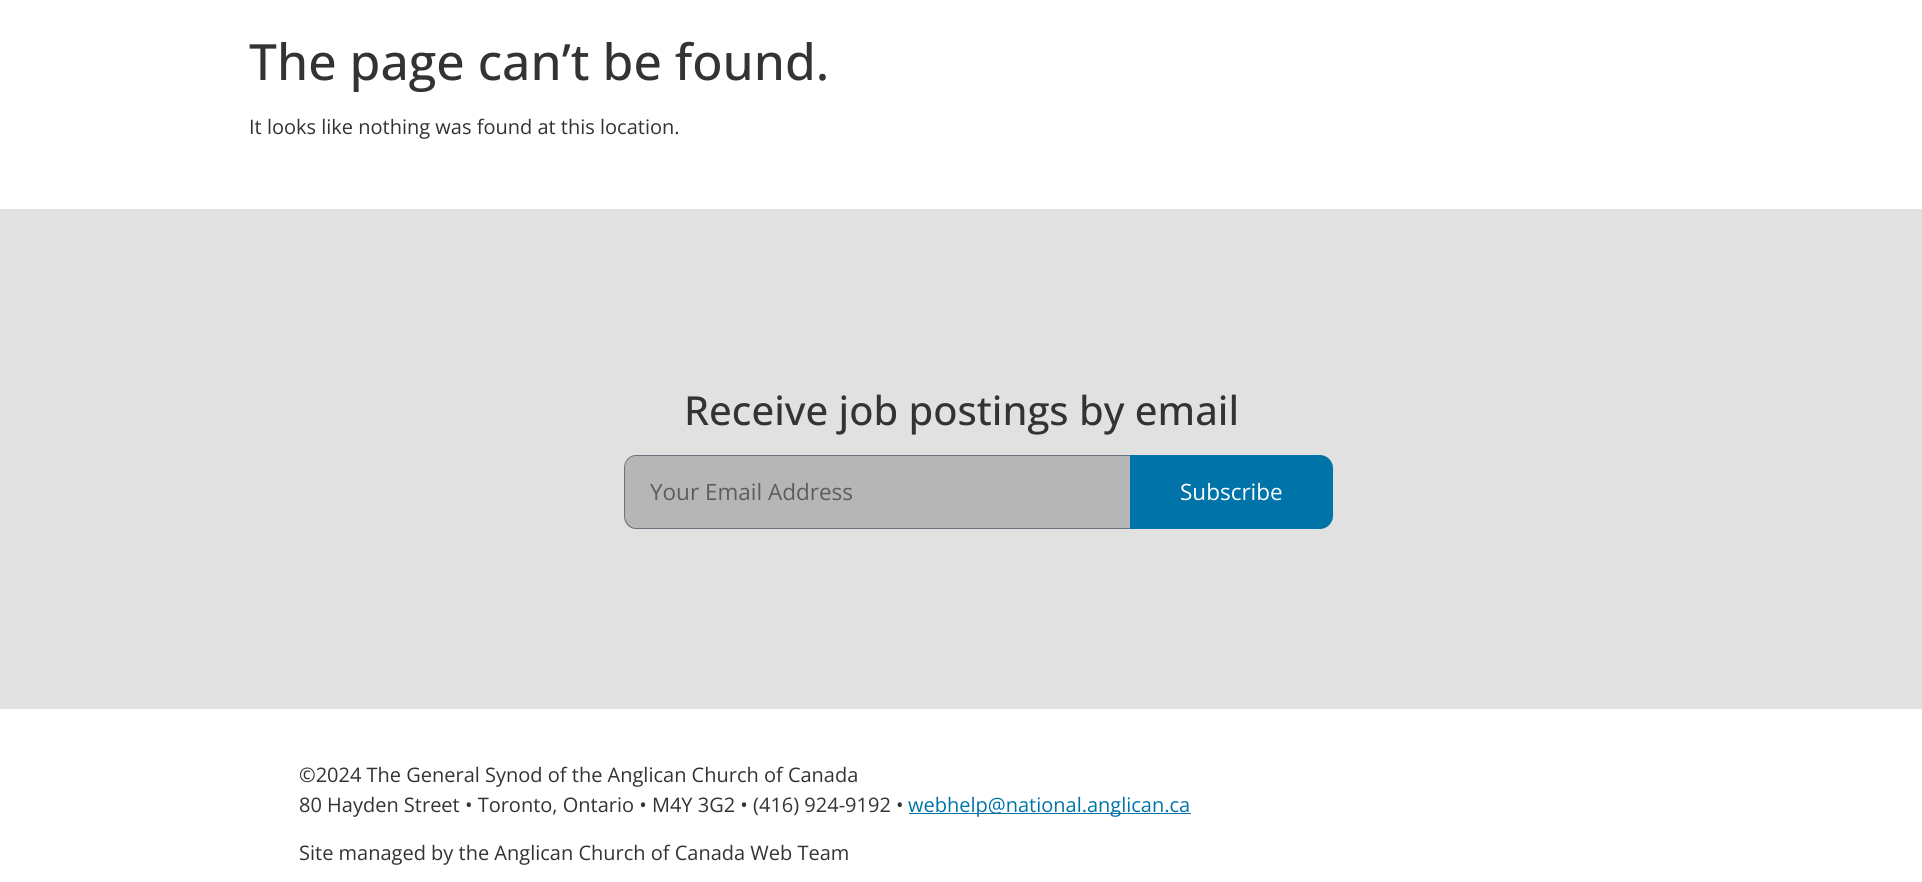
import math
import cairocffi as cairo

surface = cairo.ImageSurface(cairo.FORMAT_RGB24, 1922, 882)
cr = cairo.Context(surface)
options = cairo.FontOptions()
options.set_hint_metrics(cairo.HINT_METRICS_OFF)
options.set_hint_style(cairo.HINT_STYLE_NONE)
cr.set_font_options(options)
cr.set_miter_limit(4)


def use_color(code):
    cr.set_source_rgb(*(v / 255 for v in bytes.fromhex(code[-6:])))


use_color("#ffffff")
cr.paint()
cr.select_font_face("Open Sans Medium")
cr.set_font_size(50)
use_color("#333333")
cr.move_to(249, 80)
cr.show_text("The page can’t be found.")
cr.select_font_face("Open Sans")
cr.set_font_size(20)
cr.move_to(249, 134)
cr.show_text("It looks like nothing was found at this location.")
use_color("#e1e1e1")
cr.rectangle(0, 209, 1922, 500)
cr.fill()
cr.select_font_face("Open Sans Medium")
cr.set_font_size(40)
use_color("#333333")
cr.move_to(684, 425)
cr.show_text("Receive job postings by email")
use_color("#b6b6b6")
cr.new_path()
cr.move_to(636, 456)
cr.line_to(1130, 456)
cr.line_to(1130, 528)
cr.line_to(636, 528)
cr.curve_to(630, 528, 625, 523, 625, 517)
cr.line_to(625, 467)
cr.curve_to(625, 461, 630, 456, 636, 456)
cr.close_path()
cr.fill()
use_color("#69727d")
cr.set_fill_rule(cairo.FILL_RULE_EVEN_ODD)
cr.new_path()
cr.move_to(636, 455)
cr.line_to(1130, 455)
cr.line_to(1130, 529)
cr.line_to(636, 529)
cr.curve_to(629, 529, 624, 523, 624, 516)
cr.line_to(624, 468)
cr.curve_to(624, 461, 629, 455, 636, 455)
cr.close_path()
cr.move_to(636, 456)
cr.line_to(1130, 456)
cr.line_to(1130, 528)
cr.line_to(636, 528)
cr.curve_to(630, 528, 625, 522, 625, 516)
cr.line_to(625, 468)
cr.curve_to(625, 461, 630, 456, 636, 456)
cr.close_path()
cr.fill()
cr.select_font_face("Open Sans")
cr.set_font_size(22.5)
use_color("#5b5d5e")
cr.move_to(650, 500)
cr.show_text("Your Email Address")
use_color("#0074a8")
cr.new_path()
cr.move_to(1130, 455)
cr.line_to(1320, 455)
cr.curve_to(1327, 455, 1333, 461, 1333, 468)
cr.line_to(1333, 516)
cr.curve_to(1333, 523, 1327, 529, 1320, 529)
cr.line_to(1130, 529)
cr.close_path()
cr.fill()
use_color("#ffffff")
cr.move_to(1180, 500)
cr.show_text("Subscribe")
cr.set_font_size(20)
use_color("#333333")
cr.move_to(299, 782)
cr.show_text("©2024 The General Synod of the Anglican Church of Canada")
cr.move_to(299, 812)
cr.show_text("80 Hayden Street • Toronto, Ontario • M4Y 3G2 • (416) 924-9192 •")
use_color("#0074a8")
cr.rectangle(909, 813, 282, 1)
cr.fill()
cr.move_to(908, 812)
cr.show_text("webhelp@national.anglican.ca")
use_color("#333333")
cr.move_to(299, 860)
cr.show_text("Site managed by the Anglican Church of Canada Web Team")
surface.write_to_png("result.png")
